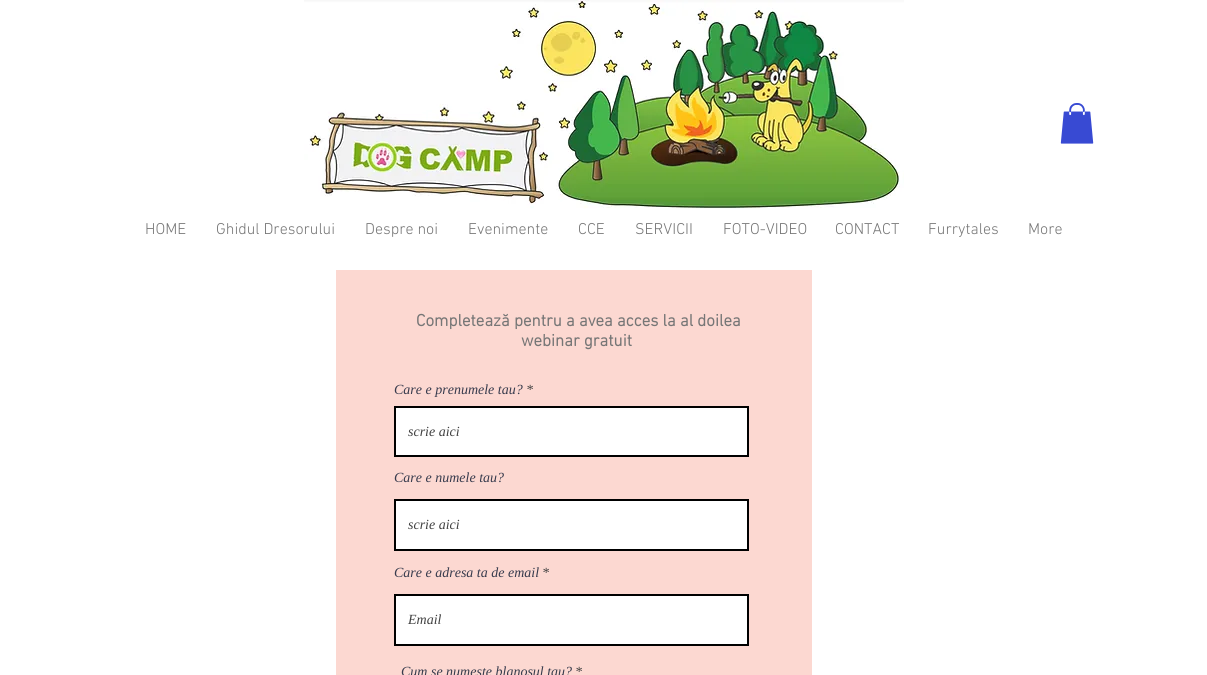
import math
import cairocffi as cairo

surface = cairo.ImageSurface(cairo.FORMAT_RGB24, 1207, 675)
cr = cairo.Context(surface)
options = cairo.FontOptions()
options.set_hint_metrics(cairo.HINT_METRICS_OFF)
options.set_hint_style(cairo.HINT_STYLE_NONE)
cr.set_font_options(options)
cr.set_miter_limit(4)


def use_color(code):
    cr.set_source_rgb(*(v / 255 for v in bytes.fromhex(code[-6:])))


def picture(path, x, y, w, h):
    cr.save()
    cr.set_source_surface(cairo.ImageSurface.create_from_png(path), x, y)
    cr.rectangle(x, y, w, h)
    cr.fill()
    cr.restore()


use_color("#ffffff")
cr.paint()
picture("img1.png", 304, 0, 600, 209)
picture("img2.png", 1060, 103, 34, 41)
cr.select_font_face("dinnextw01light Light")
cr.set_font_size(16)
use_color("#767676")
cr.move_to(145, 234)
cr.show_text("HOME")
cr.move_to(216, 234)
cr.show_text("Ghidul Dresorului")
cr.move_to(365, 234)
cr.show_text("Despre noi")
cr.move_to(468, 234)
cr.show_text("Evenimente")
cr.move_to(578, 234)
cr.show_text("CCE")
cr.move_to(635, 234)
cr.show_text("SERVICII")
cr.move_to(723, 234)
cr.show_text("FOTO-VIDEO")
cr.move_to(835, 234)
cr.show_text("CONTACT")
cr.move_to(928, 234)
cr.show_text("Furrytales")
cr.move_to(1028, 234)
cr.show_text("More")
use_color("#fcd8d1")
cr.rectangle(336, 270, 476, 405)
cr.fill()
cr.select_font_face("dinnextw01light", cairo.FONT_SLANT_NORMAL, cairo.FONT_WEIGHT_BOLD)
cr.set_font_size(17)
use_color("#767676")
cr.move_to(416, 326)
cr.show_text("Completează pentru a avea acces la al doilea")
cr.move_to(521, 346)
cr.show_text("webinar gratuit")
cr.select_font_face("Liberation Serif", cairo.FONT_SLANT_ITALIC)
cr.set_font_size(14)
use_color("#373b4d")
cr.move_to(394, 394)
cr.show_text("Care e prenumele tau?")
use_color("#414141")
cr.move_to(526, 394)
cr.show_text("*")
use_color("#ffffff")
cr.rectangle(395, 407, 353, 49)
cr.fill_preserve()
use_color("#000000")
cr.stroke()
use_color("#414141")
cr.move_to(408, 436)
cr.show_text("scrie aici")
use_color("#373b4d")
cr.move_to(394, 482)
cr.show_text("Care e numele tau?")
use_color("#ffffff")
cr.rectangle(395, 500, 353, 50)
cr.fill_preserve()
use_color("#000000")
cr.stroke()
use_color("#414141")
cr.move_to(408, 529)
cr.show_text("scrie aici")
use_color("#373b4d")
cr.move_to(394, 577)
cr.show_text("Care e adresa ta de email")
use_color("#414141")
cr.move_to(542, 577)
cr.show_text("*")
use_color("#ffffff")
cr.rectangle(395, 595, 353, 50)
cr.fill_preserve()
use_color("#000000")
cr.stroke()
use_color("#414141")
cr.move_to(408, 624)
cr.show_text("Email")
use_color("#373b4d")
cr.move_to(401, 676)
cr.show_text("Cum se numeste blanosul tau?")
use_color("#414141")
cr.move_to(575, 676)
cr.show_text("*")
surface.write_to_png("result.png")
